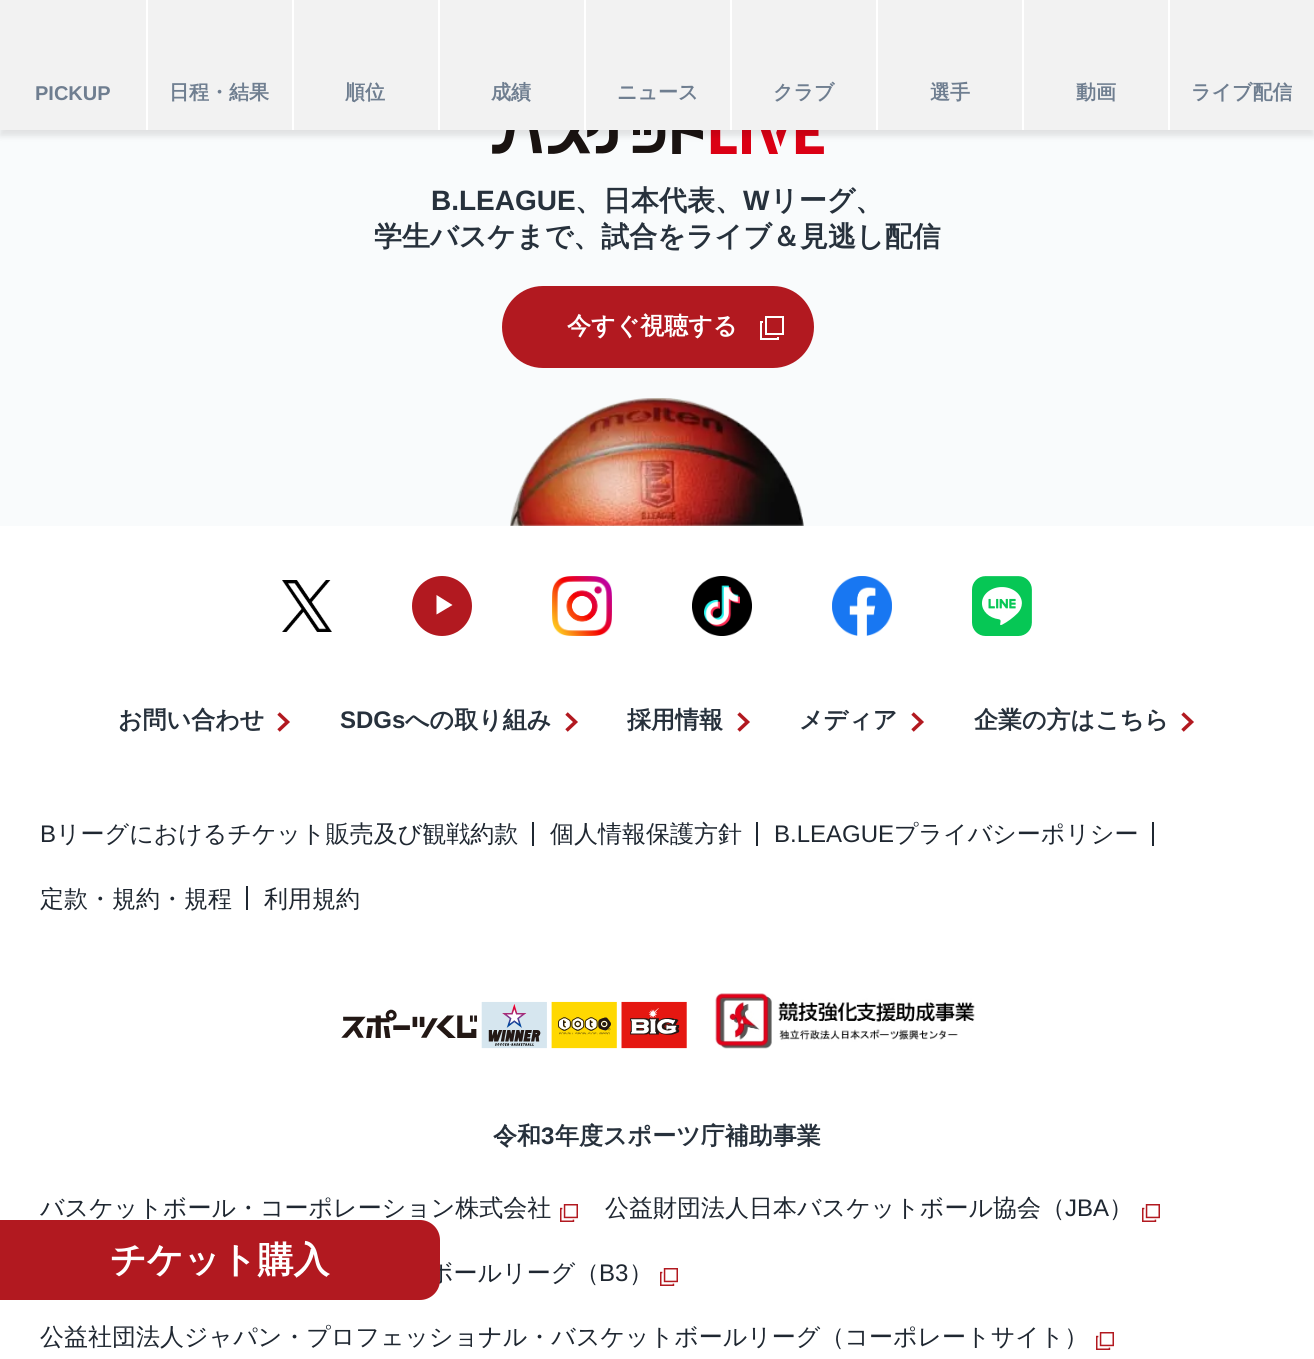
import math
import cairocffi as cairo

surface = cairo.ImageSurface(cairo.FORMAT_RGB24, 1314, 1359)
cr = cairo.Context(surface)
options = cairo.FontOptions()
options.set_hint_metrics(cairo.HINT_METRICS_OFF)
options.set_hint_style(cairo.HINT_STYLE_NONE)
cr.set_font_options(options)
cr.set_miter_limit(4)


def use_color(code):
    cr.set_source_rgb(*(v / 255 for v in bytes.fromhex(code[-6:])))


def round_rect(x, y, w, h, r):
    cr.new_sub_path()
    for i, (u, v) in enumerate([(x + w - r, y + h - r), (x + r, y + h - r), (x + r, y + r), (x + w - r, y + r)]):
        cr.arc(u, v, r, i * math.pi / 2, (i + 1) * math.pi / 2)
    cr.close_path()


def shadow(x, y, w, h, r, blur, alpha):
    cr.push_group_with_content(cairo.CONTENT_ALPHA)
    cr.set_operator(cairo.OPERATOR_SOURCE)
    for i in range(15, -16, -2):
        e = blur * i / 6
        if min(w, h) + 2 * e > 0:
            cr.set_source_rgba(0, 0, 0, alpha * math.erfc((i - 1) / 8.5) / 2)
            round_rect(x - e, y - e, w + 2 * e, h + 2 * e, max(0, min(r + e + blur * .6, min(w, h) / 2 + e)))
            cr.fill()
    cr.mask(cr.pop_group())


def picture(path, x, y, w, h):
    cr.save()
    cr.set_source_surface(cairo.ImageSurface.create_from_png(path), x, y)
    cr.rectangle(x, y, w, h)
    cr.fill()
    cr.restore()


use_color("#ffffff")
cr.paint()
use_color("#f9fbfc")
cr.rectangle(0, 130, 1314, 396)
cr.fill()
picture("img1.png", 492, 130, 332, 24)
use_color("#000000")
shadow(0, 6, 1314, 130, 0, 3, 0.1)
use_color("#f2f2f2")
cr.rectangle(0, 0, 146, 130)
cr.fill()
cr.select_font_face("Liberation Sans", cairo.FONT_SLANT_NORMAL, cairo.FONT_WEIGHT_BOLD)
cr.set_font_size(20)
use_color("#6f7e90")
cr.move_to(35, 100)
cr.show_text("PICKUP")
use_color("#f2f2f2")
cr.rectangle(148, 0, 144, 130)
cr.fill()
use_color("#ffffff")
cr.rectangle(146, 0, 2, 130)
cr.fill()
cr.select_font_face("WenQuanYi Zen Hei", cairo.FONT_SLANT_NORMAL, cairo.FONT_WEIGHT_BOLD)
use_color("#6f7e90")
cr.move_to(169, 99)
cr.show_text("日程・結果")
use_color("#f2f2f2")
cr.rectangle(294, 0, 144, 130)
cr.fill()
use_color("#ffffff")
cr.rectangle(292, 0, 2, 130)
cr.fill()
use_color("#6f7e90")
cr.move_to(345, 99)
cr.show_text("順位")
use_color("#f2f2f2")
cr.rectangle(440, 0, 144, 130)
cr.fill()
use_color("#ffffff")
cr.rectangle(438, 0, 2, 130)
cr.fill()
use_color("#6f7e90")
cr.move_to(491, 99)
cr.show_text("成績")
use_color("#f2f2f2")
cr.rectangle(586, 0, 144, 130)
cr.fill()
use_color("#ffffff")
cr.rectangle(584, 0, 2, 130)
cr.fill()
use_color("#6f7e90")
cr.move_to(617, 99)
cr.show_text("ニュース")
use_color("#f2f2f2")
cr.rectangle(732, 0, 144, 130)
cr.fill()
use_color("#ffffff")
cr.rectangle(730, 0, 2, 130)
cr.fill()
use_color("#6f7e90")
cr.move_to(773, 99)
cr.show_text("クラブ")
use_color("#f2f2f2")
cr.rectangle(878, 0, 144, 130)
cr.fill()
use_color("#ffffff")
cr.rectangle(876, 0, 2, 130)
cr.fill()
use_color("#6f7e90")
cr.move_to(930, 99)
cr.show_text("選手")
use_color("#f2f2f2")
cr.rectangle(1024, 0, 144, 130)
cr.fill()
use_color("#ffffff")
cr.rectangle(1022, 0, 2, 130)
cr.fill()
use_color("#6f7e90")
cr.move_to(1076, 99)
cr.show_text("動画")
use_color("#f2f2f2")
cr.rectangle(1170, 0, 144, 130)
cr.fill()
use_color("#ffffff")
cr.rectangle(1168, 0, 2, 130)
cr.fill()
use_color("#6f7e90")
cr.move_to(1191, 99)
cr.show_text("ライブ配信")
cr.select_font_face("Liberation Sans", cairo.FONT_SLANT_NORMAL, cairo.FONT_WEIGHT_BOLD)
cr.set_font_size(28)
use_color("#27313c")
cr.move_to(431, 210)
cr.show_text("B.LEAGUE")
cr.select_font_face("WenQuanYi Zen Hei", cairo.FONT_SLANT_NORMAL, cairo.FONT_WEIGHT_BOLD)
cr.move_to(575, 210)
cr.show_text("、日本代表、")
cr.select_font_face("Liberation Sans", cairo.FONT_SLANT_NORMAL, cairo.FONT_WEIGHT_BOLD)
cr.move_to(743, 210)
cr.show_text("W")
cr.select_font_face("WenQuanYi Zen Hei", cairo.FONT_SLANT_NORMAL, cairo.FONT_WEIGHT_BOLD)
cr.move_to(770, 210)
cr.show_text("リーグ、")
cr.move_to(374, 246)
cr.show_text("学生バスケまで、試合をライブ＆見逃し配信")
use_color("#b21920")
round_rect(502, 286, 312, 82, 41)
cr.fill()
cr.set_font_size(24)
use_color("#ffffff")
cr.move_to(567, 334)
cr.show_text("今すぐ視聴する")
cr.new_path()
cr.move_to(783, 334)
cr.line_to(766, 334)
cr.line_to(766, 317)
cr.line_to(783, 317)
cr.close_path()
cr.move_to(778, 337)
cr.line_to(778, 339)
cr.line_to(761, 339)
cr.line_to(761, 322)
cr.line_to(763, 322)
cr.stroke()
picture("img2.png", 510, 398, 294, 128)
picture("img3.png", 282, 580, 50, 52)
use_color("#b21920")
cr.arc(442, 606, 30, 0, 2 * math.pi)
cr.fill()
use_color("#ffffff")
cr.new_path()
cr.move_to(452.5, 605)
cr.line_to(436.5, 614.5)
cr.line_to(436.5, 595)
cr.close_path()
cr.fill()
picture("img4.png", 552, 576, 60, 60)
picture("img5.png", 692, 576, 60, 60)
picture("img6.png", 832, 576, 60, 60)
picture("img7.png", 972, 576, 60, 60)
use_color("#27313c")
cr.move_to(118, 728)
cr.show_text("お問い合わせ")
cr.new_path()
cr.move_to(278.5, 730.5)
cr.line_to(287.5, 722)
cr.line_to(278.5, 713.5)
use_color("#b21920")
cr.set_line_width(3.5)
cr.stroke()
cr.select_font_face("Liberation Sans", cairo.FONT_SLANT_NORMAL, cairo.FONT_WEIGHT_BOLD)
use_color("#27313c")
cr.move_to(340, 728)
cr.show_text("SDGs")
cr.select_font_face("WenQuanYi Zen Hei", cairo.FONT_SLANT_NORMAL, cairo.FONT_WEIGHT_BOLD)
cr.move_to(405, 728)
cr.show_text("への取り組み")
cr.new_path()
cr.move_to(566.5, 730.5)
cr.line_to(575.5, 722)
cr.line_to(566.5, 713.5)
use_color("#b21920")
cr.stroke()
use_color("#27313c")
cr.move_to(627, 728)
cr.show_text("採用情報")
cr.new_path()
cr.move_to(738.5, 730.5)
cr.line_to(747.5, 722)
cr.line_to(738.5, 713.5)
use_color("#b21920")
cr.stroke()
use_color("#27313c")
cr.move_to(799, 728)
cr.show_text("メディア")
cr.new_path()
cr.move_to(912.5, 730.5)
cr.line_to(921.5, 722)
cr.line_to(912.5, 713.5)
use_color("#b21920")
cr.stroke()
use_color("#27313c")
cr.move_to(974, 728)
cr.show_text("企業の方はこちら")
cr.new_path()
cr.move_to(1182.5, 730.5)
cr.line_to(1191.5, 722)
cr.line_to(1182.5, 713.5)
use_color("#b21920")
cr.stroke()
cr.select_font_face("Liberation Sans")
use_color("#1f2731")
cr.move_to(40, 842)
cr.show_text("B")
cr.select_font_face("WenQuanYi Zen Hei Medium")
cr.move_to(56, 842)
cr.show_text("リーグにおけるチケット販売及び観戦約款")
cr.rectangle(532, 822, 2, 24)
cr.fill()
cr.move_to(550, 842)
cr.show_text("個人情報保護方針")
cr.rectangle(756, 822, 2, 24)
cr.fill()
cr.select_font_face("Liberation Sans")
cr.move_to(774, 842)
cr.show_text("B.LEAGUE")
cr.select_font_face("WenQuanYi Zen Hei Medium")
cr.move_to(894, 842)
cr.show_text("プライバシーポリシー")
cr.rectangle(1152, 822, 2, 24)
cr.fill()
cr.move_to(40, 907)
cr.show_text("定款・規約・規程")
cr.rectangle(246, 886, 2, 24)
cr.fill()
cr.move_to(264, 907)
cr.show_text("利用規約")
picture("img8.png", 341, 1001, 346, 48)
picture("img9.png", 715, 993, 260, 56)
cr.select_font_face("WenQuanYi Zen Hei", cairo.FONT_SLANT_NORMAL, cairo.FONT_WEIGHT_BOLD)
use_color("#27313c")
cr.move_to(493, 1144)
cr.show_text("令和")
cr.select_font_face("Liberation Sans", cairo.FONT_SLANT_NORMAL, cairo.FONT_WEIGHT_BOLD)
cr.move_to(541, 1144)
cr.show_text("3")
cr.select_font_face("WenQuanYi Zen Hei", cairo.FONT_SLANT_NORMAL, cairo.FONT_WEIGHT_BOLD)
cr.move_to(555, 1144)
cr.show_text("年度スポーツ庁補助事業")
cr.select_font_face("WenQuanYi Zen Hei Medium")
use_color("#1f2731")
cr.move_to(40, 1216)
cr.show_text("バスケットボール・コーポレーション株式会社")
picture("img10.png", 560, 1204, 18, 18)
cr.move_to(605, 1216)
cr.show_text("公益財団法人日本バスケットボール協会（")
cr.select_font_face("Liberation Sans")
cr.move_to(1065, 1216)
cr.show_text("JBA")
cr.select_font_face("WenQuanYi Zen Hei Medium")
cr.move_to(1109, 1216)
cr.show_text("）")
picture("img10.png", 1142, 1204, 18, 18)
cr.move_to(429, 1281)
cr.show_text("ボールリーグ（")
cr.select_font_face("Liberation Sans")
cr.move_to(599, 1281)
cr.show_text("B3")
cr.select_font_face("WenQuanYi Zen Hei Medium")
cr.move_to(629, 1281)
cr.show_text("）")
picture("img10.png", 660, 1268, 18, 18)
cr.move_to(40, 1345)
cr.show_text("公益社団法人ジャパン・プロフェッショナル・バスケットボールリーグ（コーポレートサイト）")
picture("img10.png", 1096, 1332, 18, 18)
use_color("#b21920")
cr.new_path()
cr.move_to(0, 1220)
cr.line_to(420, 1220)
cr.curve_to(431, 1220, 440, 1229, 440, 1240)
cr.line_to(440, 1280)
cr.curve_to(440, 1291, 431, 1300, 420, 1300)
cr.line_to(0, 1300)
cr.close_path()
cr.fill()
cr.select_font_face("WenQuanYi Zen Hei", cairo.FONT_SLANT_NORMAL, cairo.FONT_WEIGHT_BOLD)
cr.set_font_size(36)
use_color("#ffffff")
cr.move_to(110, 1272)
cr.show_text("チケット購入")
surface.write_to_png("result.png")
